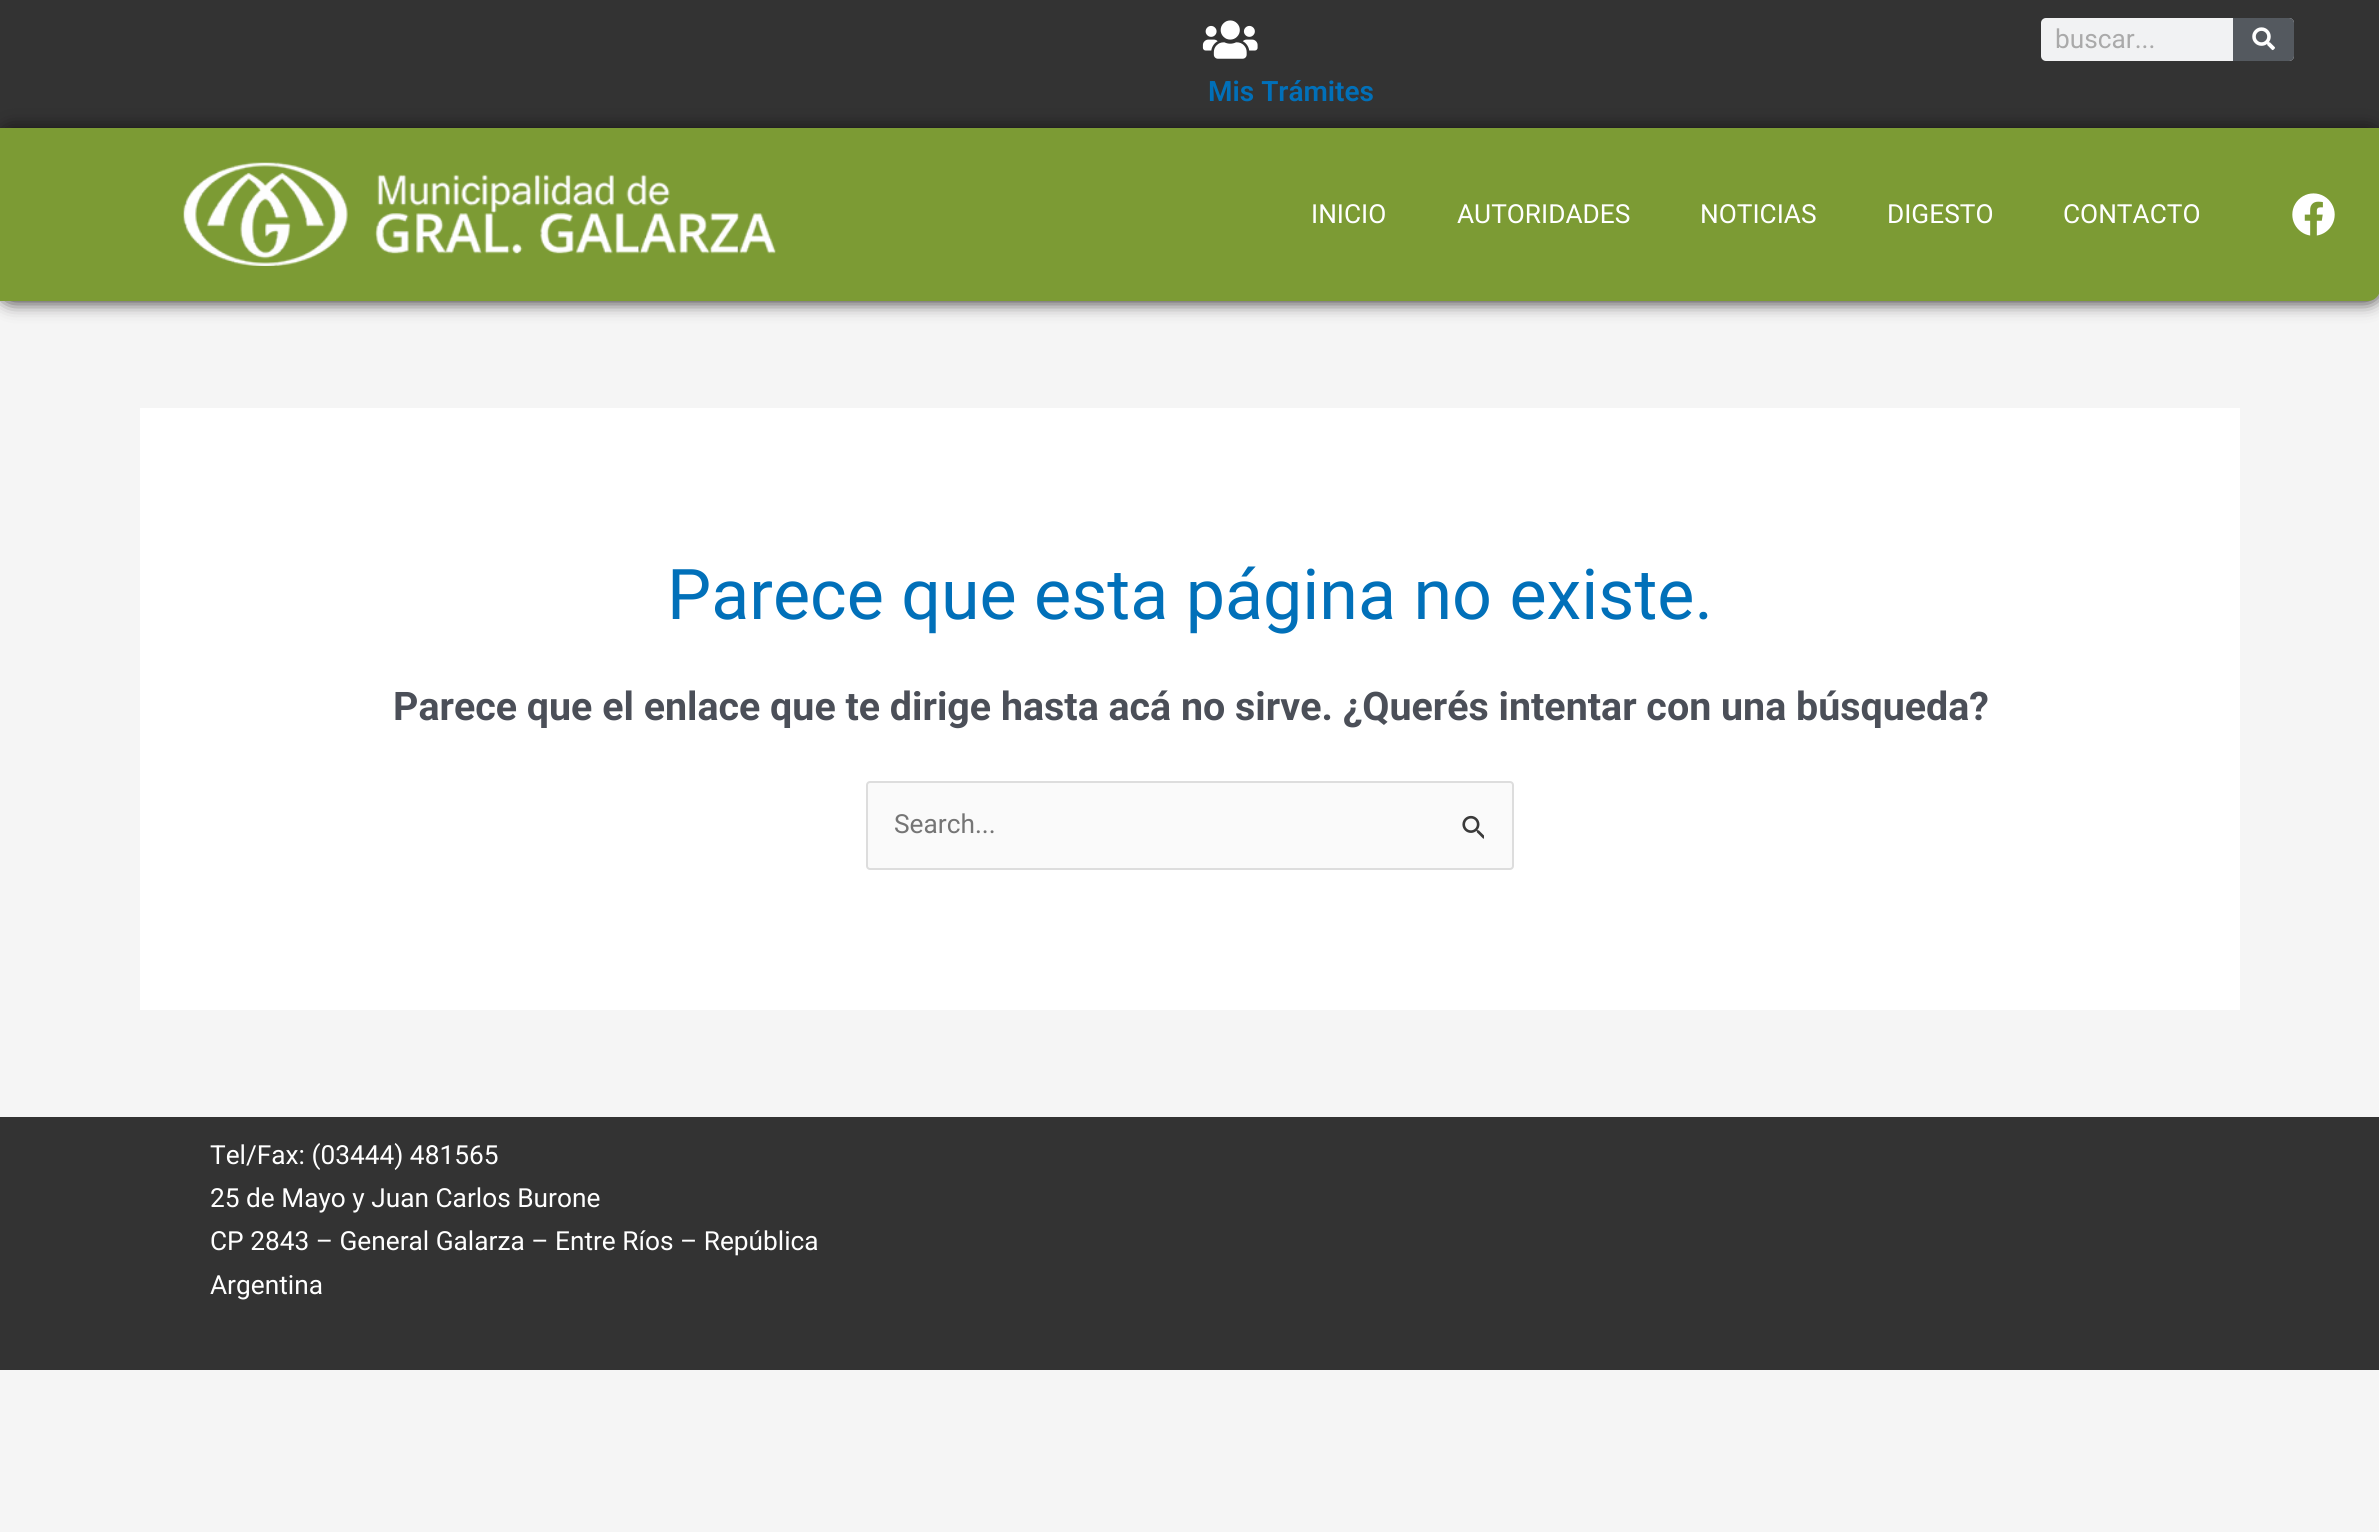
import math
import cairocffi as cairo

surface = cairo.ImageSurface(cairo.FORMAT_RGB24, 2379, 1532)
cr = cairo.Context(surface)
options = cairo.FontOptions()
options.set_hint_metrics(cairo.HINT_METRICS_OFF)
options.set_hint_style(cairo.HINT_STYLE_NONE)
cr.set_font_options(options)
cr.set_miter_limit(4)


def use_color(code):
    cr.set_source_rgb(*(v / 255 for v in bytes.fromhex(code[-6:])))


def round_rect(x, y, w, h, r):
    cr.new_sub_path()
    for i, (u, v) in enumerate([(x + w - r, y + h - r), (x + r, y + h - r), (x + r, y + r), (x + w - r, y + r)]):
        cr.arc(u, v, r, i * math.pi / 2, (i + 1) * math.pi / 2)
    cr.close_path()


def shadow(x, y, w, h, r, blur, alpha):
    cr.push_group_with_content(cairo.CONTENT_ALPHA)
    cr.set_operator(cairo.OPERATOR_SOURCE)
    for i in range(15, -16, -2):
        e = blur * i / 6
        if min(w, h) + 2 * e > 0:
            cr.set_source_rgba(0, 0, 0, alpha * math.erfc((i - 1) / 8.5) / 2)
            round_rect(x - e, y - e, w + 2 * e, h + 2 * e, max(0, min(r + e + blur * .6, min(w, h) / 2 + e)))
            cr.fill()
    cr.mask(cr.pop_group())


def picture(path, x, y, w, h):
    cr.save()
    cr.set_source_surface(cairo.ImageSurface.create_from_png(path), x, y)
    cr.rectangle(x, y, w, h)
    cr.fill()
    cr.restore()


use_color("#f5f5f5")
cr.paint()
use_color("#333333")
cr.rectangle(0, 0, 2379, 128)
cr.fill()
use_color("#f1f2f3")
round_rect(2041, 18, 253, 43, 5)
cr.fill()
cr.select_font_face("Roboto")
cr.set_font_size(26.25)
use_color("#aaaaaa")
cr.move_to(2055, 48)
cr.show_text("buscar...")
use_color("#54595f")
cr.new_path()
cr.move_to(2233, 18)
cr.line_to(2289, 18)
cr.curve_to(2292, 18, 2294, 20, 2294, 23)
cr.line_to(2294, 56)
cr.curve_to(2294, 59, 2292, 61, 2289, 61)
cr.line_to(2233, 61)
cr.close_path()
cr.fill()
picture("img1.png", 2252, 27, 23, 24)
picture("img2.png", 1202, 20, 56, 39)
cr.select_font_face("Roboto SemiBold")
cr.set_font_size(28)
use_color("#0170b9")
cr.move_to(1208, 101)
cr.show_text("Mis Trámites")
use_color("#151112")
shadow(0, 128, 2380, 173, 12, 9, 0.98)
use_color("#7c9b34")
cr.new_path()
cr.move_to(0, 128)
cr.line_to(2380, 128)
cr.line_to(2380, 289)
cr.curve_to(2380, 295.5, 2374.5, 301, 2368, 301)
cr.line_to(0, 301)
cr.close_path()
cr.fill()
picture("img3.png", 183, 162, 593, 104)
cr.select_font_face("Roboto")
cr.set_font_size(26.25)
use_color("#ffffff")
cr.move_to(1311, 223)
cr.show_text("INICIO")
cr.move_to(1457, 223)
cr.show_text("AUTORIDADES")
cr.move_to(1700, 223)
cr.show_text("NOTICIAS")
cr.move_to(1887, 223)
cr.show_text("DIGESTO")
cr.move_to(2063, 223)
cr.show_text("CONTACTO")
picture("img4.png", 2292, 193, 43, 43)
cr.rectangle(140, 408, 2100, 602)
cr.fill()
cr.set_font_size(70)
use_color("#0170b9")
cr.move_to(667, 619)
cr.show_text("Parece que esta página no existe.")
cr.select_font_face("Roboto", cairo.FONT_SLANT_NORMAL, cairo.FONT_WEIGHT_BOLD)
cr.set_font_size(39.4)
use_color("#4b4f58")
cr.move_to(393, 720)
cr.show_text("Parece que el enlace que te dirige hasta acá no sirve. ¿Querés intentar con una búsqueda?")
use_color("#fafafa")
round_rect(867, 782, 646, 87, 3)
cr.fill_preserve()
use_color("#dddddd")
cr.stroke()
cr.select_font_face("Roboto")
cr.set_font_size(26.25)
use_color("#757575")
cr.move_to(894, 833)
cr.show_text("Search...")
picture("img5.png", 1462, 815, 22, 24)
use_color("#333333")
cr.rectangle(0, 1117, 2379, 253)
cr.fill()
use_color("#ffffff")
cr.move_to(210, 1164)
cr.show_text("Tel/Fax: (03444) 481565")
cr.move_to(210, 1207)
cr.show_text("25 de Mayo y Juan Carlos Burone")
cr.move_to(210, 1250)
cr.show_text("CP 2843 – General Galarza – Entre Ríos – República")
cr.move_to(210, 1294)
cr.show_text("Argentina")
surface.write_to_png("result.png")
